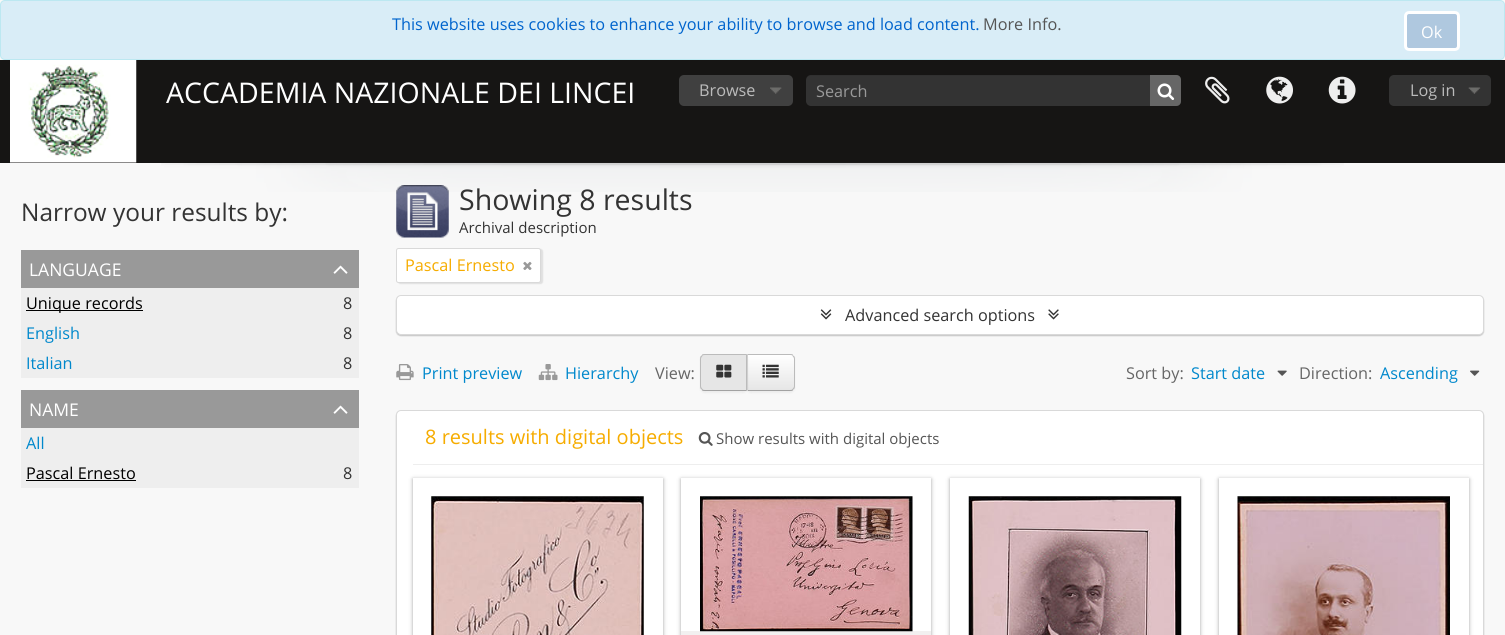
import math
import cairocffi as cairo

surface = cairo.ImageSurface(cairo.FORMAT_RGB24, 1505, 635)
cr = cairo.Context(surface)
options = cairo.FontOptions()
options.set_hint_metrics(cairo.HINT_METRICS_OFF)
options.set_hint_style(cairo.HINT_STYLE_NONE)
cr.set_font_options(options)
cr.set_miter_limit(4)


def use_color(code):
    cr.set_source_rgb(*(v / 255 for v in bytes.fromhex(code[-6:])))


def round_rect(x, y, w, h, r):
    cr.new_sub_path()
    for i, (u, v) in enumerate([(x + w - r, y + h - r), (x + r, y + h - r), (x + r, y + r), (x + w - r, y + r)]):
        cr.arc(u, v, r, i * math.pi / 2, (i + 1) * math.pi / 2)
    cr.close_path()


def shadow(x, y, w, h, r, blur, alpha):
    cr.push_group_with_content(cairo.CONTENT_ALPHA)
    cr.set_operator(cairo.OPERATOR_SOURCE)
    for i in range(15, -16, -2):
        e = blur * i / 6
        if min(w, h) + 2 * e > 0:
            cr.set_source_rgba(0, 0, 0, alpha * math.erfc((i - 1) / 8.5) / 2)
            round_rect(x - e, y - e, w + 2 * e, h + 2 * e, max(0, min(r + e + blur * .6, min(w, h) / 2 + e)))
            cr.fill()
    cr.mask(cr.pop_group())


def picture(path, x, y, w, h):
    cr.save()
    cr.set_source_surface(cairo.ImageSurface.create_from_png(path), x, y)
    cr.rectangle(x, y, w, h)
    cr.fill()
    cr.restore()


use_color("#f8f8f8")
cr.paint()
use_color("#d9edf7")
round_rect(0.5, 0.5, 1504, 59, 4.5)
cr.fill_preserve()
use_color("#bce8f1")
cr.set_line_width(1)
cr.stroke()
cr.select_font_face("Open Sans")
cr.set_font_size(16.25)
use_color("#0064cd")
cr.move_to(392, 30)
cr.show_text("This website uses cookies to enhance your ability to browse and load content.")
use_color("#555555")
cr.move_to(983, 30)
cr.show_text("More Info.")
use_color("#afc8df")
round_rect(1405.5, 12.5, 53, 37, 3.5)
cr.fill_preserve()
use_color("#ffffff")
cr.set_line_width(3)
cr.stroke()
cr.move_to(1421, 38)
cr.show_text("Ok")
use_color("#161514")
cr.rectangle(0, 60, 1505, 103)
cr.fill()
picture("img1.png", 10, 60, 127, 103)
cr.set_font_size(28.5)
use_color("#ffffff")
cr.move_to(166, 103)
cr.show_text("ACCADEMIA NAZIONALE DEI LINCEI")
use_color("#404040")
round_rect(679, 75, 114, 31, 5)
cr.fill()
picture("img2.png", 770, 87, 12, 7)
cr.set_font_size(16.25)
use_color("#bbbbbb")
cr.move_to(699, 96)
cr.show_text("Browse")
use_color("#333333")
round_rect(806, 75, 375, 31, 5)
cr.fill()
cr.set_source_rgba(0, 0, 0, 0.07)
cr.new_path()
cr.move_to(811, 76)
cr.line_to(1176, 76)
cr.curve_to(1179, 76, 1181, 78, 1181, 81)
cr.line_to(1181, 80)
cr.curve_to(1181, 77, 1179, 75, 1176, 75)
cr.line_to(811, 75)
cr.curve_to(808, 75, 806, 77, 806, 80)
cr.line_to(806, 81)
cr.curve_to(806, 78, 808, 76, 811, 76)
cr.close_path()
cr.fill()
use_color("#999999")
cr.move_to(816, 97)
cr.show_text("Search")
use_color("#666666")
cr.new_path()
cr.move_to(1150, 75)
cr.line_to(1176, 75)
cr.curve_to(1179, 75, 1181, 77, 1181, 80)
cr.line_to(1181, 101)
cr.curve_to(1181, 104, 1179, 106, 1176, 106)
cr.line_to(1150, 106)
cr.close_path()
cr.fill()
picture("img3.png", 1157, 83, 18, 17)
picture("img4.png", 1205, 76, 25, 28)
picture("img5.png", 1266, 76, 27, 28)
picture("img6.png", 1328, 76, 28, 28)
use_color("#333333")
round_rect(1389, 75, 102, 31, 5)
cr.fill()
picture("img7.png", 1468, 87, 13, 7)
use_color("#bbbbbb")
cr.move_to(1410, 96)
cr.show_text("Log in")
picture("img8.png", 161, 162, 1183, 30)
cr.set_font_size(24.4)
use_color("#333333")
cr.move_to(21, 221)
cr.show_text("Narrow your results by:")
use_color("#999999")
cr.rectangle(21, 250, 338, 38)
cr.fill()
cr.set_font_size(17.5)
use_color("#ffffff")
cr.move_to(29, 276)
cr.show_text("LANGUAGE")
picture("img9.png", 333, 265, 15, 9)
use_color("#eeeeee")
cr.rectangle(21, 288, 338, 90)
cr.fill()
use_color("#000000")
cr.rectangle(26, 310, 117, 1)
cr.fill()
cr.set_font_size(16.25)
cr.move_to(26, 309)
cr.show_text("Unique records")
use_color("#333333")
cr.move_to(343, 309)
cr.show_text("8")
use_color("#0088cc")
cr.move_to(26, 339)
cr.show_text("English")
use_color("#333333")
cr.move_to(343, 339)
cr.show_text("8")
use_color("#0088cc")
cr.move_to(26, 369)
cr.show_text("Italian")
use_color("#333333")
cr.move_to(343, 369)
cr.show_text("8")
use_color("#999999")
cr.rectangle(21, 390, 338, 38)
cr.fill()
cr.set_font_size(17.5)
use_color("#ffffff")
cr.move_to(29, 416)
cr.show_text("NAME")
picture("img9.png", 333, 405, 15, 9)
use_color("#eeeeee")
cr.rectangle(21, 428, 338, 60)
cr.fill()
cr.set_font_size(16.25)
use_color("#0088cc")
cr.move_to(26, 449)
cr.show_text("All")
use_color("#000000")
cr.move_to(26, 479)
cr.show_text("Pascal Ernesto")
cr.rectangle(26, 480, 110, 1)
cr.fill()
use_color("#333333")
cr.move_to(343, 479)
cr.show_text("8")
picture("img10.png", 396, 185, 53, 53)
cr.set_font_size(28.5)
cr.move_to(459, 210)
cr.show_text("Showing 8 results")
cr.set_font_size(15)
cr.move_to(459, 233)
cr.show_text("Archival description")
use_color("#000000")
shadow(398, 249, 145, 35, 2.5, 0.5, 0.1)
use_color("#ffffff")
round_rect(396.5, 248.5, 144, 34, 2)
cr.fill_preserve()
use_color("#d9d9d9")
cr.set_line_width(1)
cr.stroke()
cr.set_font_size(16.25)
use_color("#f6ac00")
cr.move_to(405, 271)
cr.show_text("Pascal Ernesto")
picture("img11.png", 523, 261, 9, 9)
use_color("#000000")
shadow(396, 296, 1088, 40, 5, 0.5, 0.2)
use_color("#ffffff")
round_rect(396.5, 295.5, 1087, 39, 4.5)
cr.fill_preserve()
use_color("#d9d9d9")
cr.stroke()
picture("img12.png", 820, 309, 12, 11)
use_color("#333333")
cr.move_to(845, 321)
cr.show_text("Advanced search options")
picture("img13.png", 1048, 309, 11, 11)
picture("img14.png", 396, 364, 18, 17)
use_color("#0088cc")
cr.move_to(422, 379)
cr.show_text("Print preview")
picture("img15.png", 538, 364, 20, 17)
cr.move_to(565, 379)
cr.show_text("Hierarchy")
use_color("#666666")
cr.move_to(655, 379)
cr.show_text("View:")
use_color("#000000")
shadow(746, 355, 49, 38, 5, 1, 0.05)
cr.save()
cr.new_path()
cr.move_to(746, 354)
cr.line_to(790, 354)
cr.curve_to(793, 354, 795, 356, 795, 359)
cr.line_to(795, 386)
cr.curve_to(795, 389, 793, 391, 790, 391)
cr.line_to(746, 391)
cr.close_path()
cr.clip()
gradient = cairo.LinearGradient(771, 355, 771, 390)
gradient.add_color_stop_rgba(0, 1, 1, 1, 1)
gradient.add_color_stop_rgba(1, 0.902, 0.902, 0.902, 1)
cr.set_source(gradient)
cr.rectangle(748, 355, 47, 35)
cr.fill()
cr.restore()
use_color("#bbbbbb")
cr.new_path()
cr.move_to(748, 355)
cr.line_to(790, 355)
cr.curve_to(791, 355, 792, 355, 793, 356)
cr.line_to(793, 355)
cr.curve_to(793, 354, 791, 354, 790, 354)
cr.line_to(746, 354)
cr.line_to(748, 356)
cr.close_path()
cr.fill()
cr.new_path()
cr.move_to(793.5, 355.5)
cr.curve_to(794.5, 356, 795, 357.5, 795, 359)
cr.line_to(795, 386)
cr.curve_to(795, 387.5, 794.5, 389, 793.5, 389.5)
cr.line_to(792.5, 389)
cr.curve_to(793.5, 388, 794, 387, 794, 386)
cr.line_to(794, 359)
cr.curve_to(794, 358, 793.5, 357, 792.5, 356)
cr.close_path()
cr.fill()
use_color("#a2a2a2")
cr.new_path()
cr.move_to(793, 390)
cr.curve_to(793, 391, 791, 391, 790, 391)
cr.line_to(746, 391)
cr.line_to(748, 390)
cr.line_to(790, 390)
cr.curve_to(791, 390, 792, 390, 793, 389)
cr.close_path()
cr.fill()
use_color("#000000")
shadow(700, 355, 48, 38, 5, 1, 0.05)
use_color("#e6e6e6")
cr.new_path()
cr.move_to(705, 354)
cr.line_to(748, 354)
cr.line_to(748, 391)
cr.line_to(705, 391)
cr.curve_to(702, 391, 700, 389, 700, 386)
cr.line_to(700, 359)
cr.curve_to(700, 356, 702, 354, 705, 354)
cr.close_path()
cr.fill()
use_color("#bbbbbb")
cr.new_path()
cr.move_to(705, 354)
cr.curve_to(704, 354, 702, 354, 702, 355)
cr.line_to(702, 356)
cr.curve_to(703, 355, 704, 355, 705, 355)
cr.line_to(746, 355)
cr.line_to(747, 354)
cr.close_path()
cr.fill()
cr.new_path()
cr.move_to(747.5, 391)
cr.line_to(746, 390)
cr.line_to(746, 355)
cr.line_to(747, 354)
cr.line_to(747.5, 354)
cr.close_path()
cr.fill()
use_color("#a2a2a2")
cr.new_path()
cr.move_to(747, 391)
cr.line_to(705, 391)
cr.curve_to(704, 391, 702, 391, 702, 390)
cr.line_to(702, 389)
cr.curve_to(703, 390, 704, 390, 705, 390)
cr.line_to(746, 390)
cr.close_path()
cr.fill()
use_color("#bbbbbb")
cr.new_path()
cr.move_to(700, 359)
cr.line_to(700, 386)
cr.curve_to(700, 387.5, 700.5, 389, 701.5, 389.5)
cr.line_to(702.5, 389)
cr.curve_to(701.5, 388, 701, 387, 701, 386)
cr.line_to(701, 359)
cr.curve_to(701, 358, 701.5, 357, 702.5, 356)
cr.line_to(701.5, 355.5)
cr.curve_to(700.5, 356, 700, 357.5, 700, 359)
cr.close_path()
cr.fill()
picture("img16.png", 716, 364, 16, 14)
picture("img17.png", 762, 364, 17, 14)
use_color("#666666")
cr.move_to(1126, 379)
cr.show_text("Sort by:")
use_color("#0088cc")
cr.move_to(1191, 379)
cr.show_text("Start date")
picture("img18.png", 1277, 370, 10, 6)
use_color("#666666")
cr.move_to(1299, 379)
cr.show_text("Direction:")
use_color("#0088cc")
cr.move_to(1380, 379)
cr.show_text("Ascending")
picture("img19.png", 1470, 370, 10, 6)
use_color("#000000")
shadow(396, 411, 1088, 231, 5, 0.5, 0.2)
use_color("#ffffff")
round_rect(396.5, 410.5, 1087, 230, 4.5)
cr.fill_preserve()
use_color("#d9d9d9")
cr.stroke()
use_color("#eeeeee")
cr.rectangle(413, 464, 1070, 1)
cr.fill()
cr.set_font_size(20)
use_color("#f6ac00")
cr.move_to(425, 444)
cr.show_text("8 results with digital objects")
picture("img20.png", 698, 432, 15, 14)
cr.set_font_size(15)
use_color("#555555")
cr.move_to(716, 444)
cr.show_text("Show results with digital objects")
use_color("#191919")
shadow(413, 479, 250, 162, 0, 2, 0.4)
use_color("#ffffff")
cr.rectangle(413, 478, 250, 157)
cr.fill()
picture("img21.png", 431, 496, 213, 139)
use_color("#191919")
shadow(681, 479, 250, 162, 0, 2, 0.4)
use_color("#ffffff")
cr.rectangle(681, 478, 250, 153)
cr.fill()
use_color("#f2f0f0")
cr.rectangle(681, 631, 250, 4)
cr.fill()
picture("img22.png", 700, 496, 213, 136)
cr.save()
cr.set_fill_rule(cairo.FILL_RULE_EVEN_ODD)
cr.new_path()
cr.move_to(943, 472)
cr.line_to(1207, 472)
cr.line_to(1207, 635)
cr.line_to(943, 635)
cr.close_path()
cr.move_to(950, 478)
cr.line_to(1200, 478)
cr.line_to(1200, 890)
cr.line_to(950, 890)
cr.close_path()
cr.clip()
use_color("#191919")
shadow(950, 479, 250, 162, 0, 2, 0.4)
cr.restore()
picture("img23.png", 968, 496, 214, 139)
use_color("#191919")
shadow(1219, 479, 250, 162, 0, 2, 0.4)
use_color("#ffffff")
cr.rectangle(1219, 478, 250, 157)
cr.fill()
picture("img24.png", 1237, 496, 213, 139)
surface.write_to_png("result.png")
